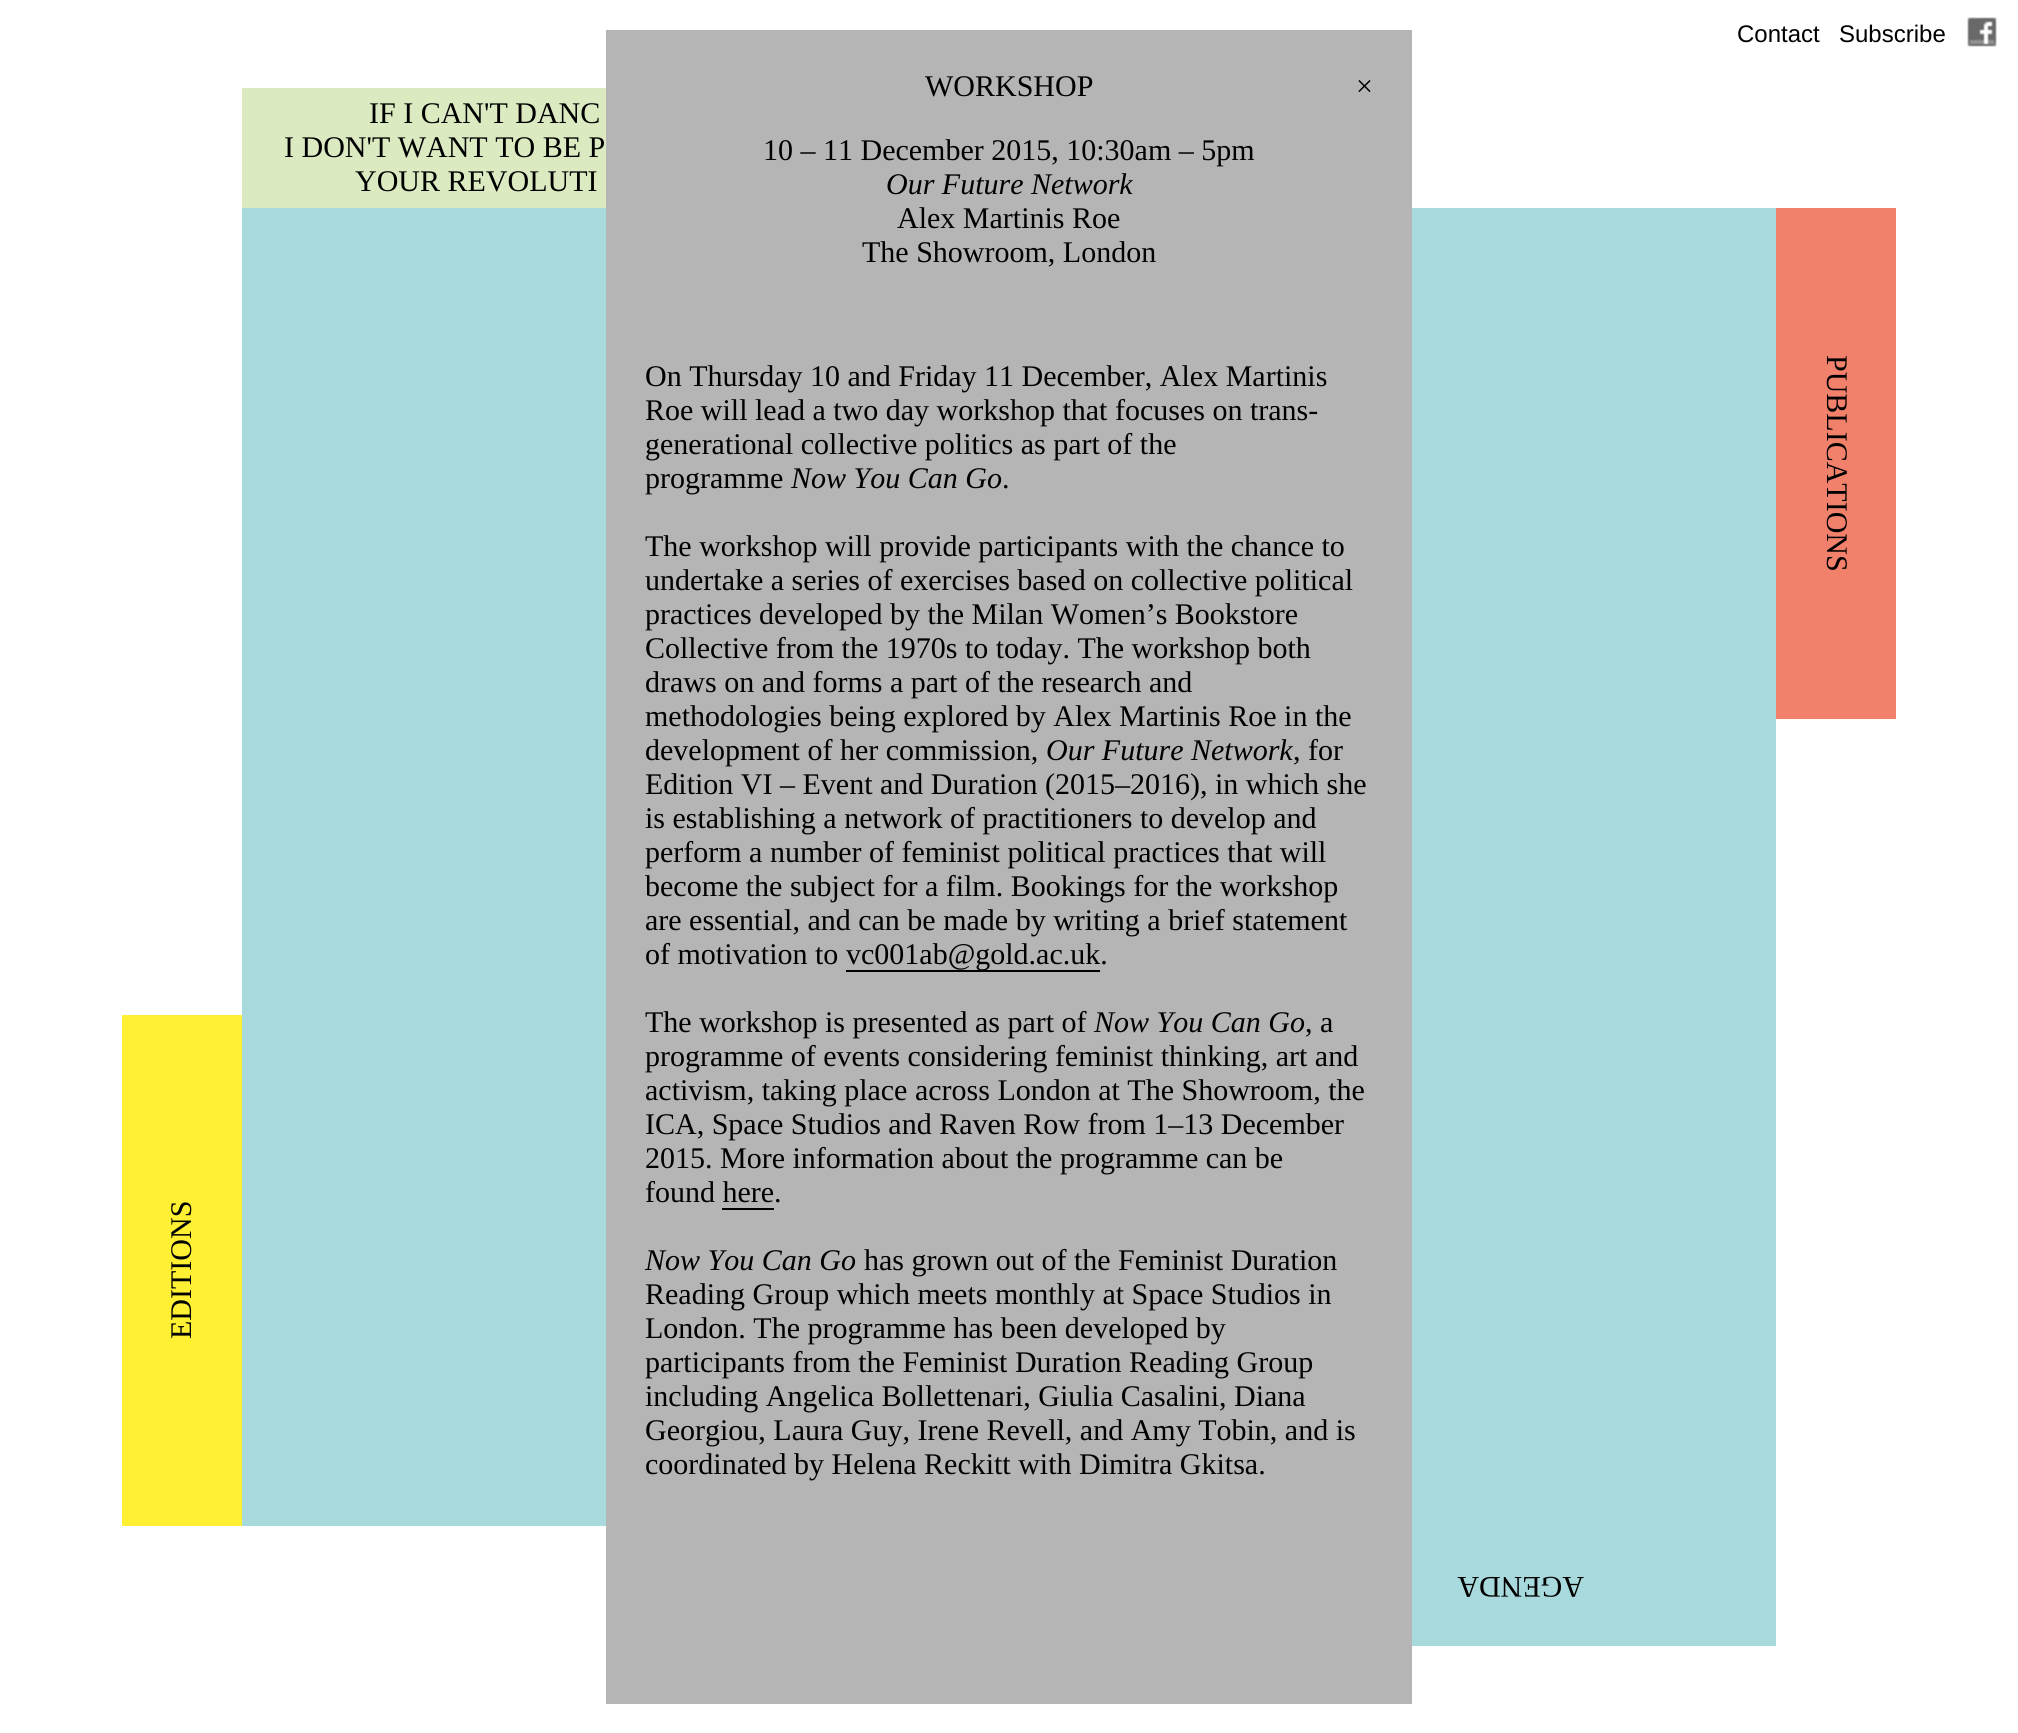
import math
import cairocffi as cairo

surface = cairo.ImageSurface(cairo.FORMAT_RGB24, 2018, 1733)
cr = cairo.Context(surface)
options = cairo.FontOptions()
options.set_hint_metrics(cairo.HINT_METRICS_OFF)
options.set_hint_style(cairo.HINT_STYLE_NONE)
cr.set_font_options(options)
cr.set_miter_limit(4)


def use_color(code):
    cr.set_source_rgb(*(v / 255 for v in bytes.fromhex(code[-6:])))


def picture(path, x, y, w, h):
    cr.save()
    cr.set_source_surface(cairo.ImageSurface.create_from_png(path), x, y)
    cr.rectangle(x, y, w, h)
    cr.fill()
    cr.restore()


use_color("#ffffff")
cr.paint()
cr.select_font_face("Liberation Sans")
cr.set_font_size(24)
use_color("#000000")
cr.move_to(1737, 42)
cr.show_text("Contact")
cr.move_to(1839, 42)
cr.show_text("Subscribe")
picture("img1.png", 1967, 17, 30, 30)
use_color("#a8d9dc")
cr.rectangle(242, 208, 1534, 1318)
cr.fill()
use_color("#b4b5b4")
cr.rectangle(606, 30, 806, 1674)
cr.fill()
cr.select_font_face("Liberation Serif")
cr.set_font_size(30)
use_color("#000000")
cr.move_to(925, 96)
cr.show_text("WORKSHOP")
cr.move_to(1356, 96)
cr.show_text("×")
cr.move_to(763, 160)
cr.show_text("10 – 11 December 2015, 10:30am – 5pm")
cr.select_font_face("Liberation Serif", cairo.FONT_SLANT_ITALIC)
cr.move_to(886, 194)
cr.show_text("Our Future Network")
cr.select_font_face("Liberation Serif")
cr.move_to(897, 228)
cr.show_text("Alex Martinis Roe")
cr.move_to(862, 262)
cr.show_text("The Showroom, London")
cr.move_to(645, 386)
cr.show_text("On Thursday 10 and Friday 11 December, Alex Martinis")
cr.move_to(645, 420)
cr.show_text("Roe will lead a two day workshop that focuses on trans-")
cr.move_to(645, 454)
cr.show_text("generational collective politics as part of the")
cr.move_to(645, 488)
cr.show_text("programme")
cr.select_font_face("Liberation Serif", cairo.FONT_SLANT_ITALIC)
cr.move_to(791, 488)
cr.show_text("Now You Can Go")
cr.select_font_face("Liberation Serif")
cr.move_to(1002, 488)
cr.show_text(".")
cr.move_to(645, 556)
cr.show_text("The workshop will provide participants with the chance to")
cr.move_to(645, 590)
cr.show_text("undertake a series of exercises based on collective political")
cr.move_to(645, 624)
cr.show_text("practices developed by the Milan Women’s Bookstore")
cr.move_to(645, 658)
cr.show_text("Collective from the 1970s to today. The workshop both")
cr.move_to(645, 692)
cr.show_text("draws on and forms a part of the research and")
cr.move_to(645, 726)
cr.show_text("methodologies being explored by Alex Martinis Roe in the")
cr.move_to(645, 760)
cr.show_text("development of her commission,")
cr.select_font_face("Liberation Serif", cairo.FONT_SLANT_ITALIC)
cr.move_to(1046, 760)
cr.show_text("Our Future Network")
cr.select_font_face("Liberation Serif")
cr.move_to(1293, 760)
cr.show_text(", for")
cr.move_to(645, 794)
cr.show_text("Edition VI – Event and Duration (2015–2016), in which she")
cr.move_to(645, 828)
cr.show_text("is establishing a network of practitioners to develop and")
cr.move_to(645, 862)
cr.show_text("perform a number of feminist political practices that will")
cr.move_to(645, 896)
cr.show_text("become the subject for a film. Bookings for the workshop")
cr.move_to(645, 930)
cr.show_text("are essential, and can be made by writing a brief statement")
cr.move_to(645, 964)
cr.show_text("of motivation to")
cr.rectangle(846, 970, 254, 2)
cr.fill()
cr.move_to(846, 964)
cr.show_text("vc001ab@gold.ac.uk.")
cr.move_to(645, 1032)
cr.show_text("The workshop is presented as part of")
cr.select_font_face("Liberation Serif", cairo.FONT_SLANT_ITALIC)
cr.move_to(1094, 1032)
cr.show_text("Now You Can Go")
cr.select_font_face("Liberation Serif")
cr.move_to(1305, 1032)
cr.show_text(", a")
cr.move_to(645, 1066)
cr.show_text("programme of events considering feminist thinking, art and")
cr.move_to(645, 1100)
cr.show_text("activism, taking place across London at The Showroom, the")
cr.move_to(645, 1134)
cr.show_text("ICA, Space Studios and Raven Row from 1–13 December")
cr.move_to(645, 1168)
cr.show_text("2015. More information about the programme can be")
cr.move_to(645, 1202)
cr.show_text("found here.")
cr.rectangle(722, 1208, 52, 2)
cr.fill()
cr.select_font_face("Liberation Serif", cairo.FONT_SLANT_ITALIC)
cr.move_to(645, 1270)
cr.show_text("Now You Can Go")
cr.select_font_face("Liberation Serif")
cr.move_to(864, 1270)
cr.show_text("has grown out of the Feminist Duration")
cr.move_to(645, 1304)
cr.show_text("Reading Group which meets monthly at Space Studios in")
cr.move_to(645, 1338)
cr.show_text("London. The programme has been developed by")
cr.move_to(645, 1372)
cr.show_text("participants from the Feminist Duration Reading Group")
cr.move_to(645, 1406)
cr.show_text("including Angelica Bollettenari, Giulia Casalini, Diana")
cr.move_to(645, 1440)
cr.show_text("Georgiou, Laura Guy, Irene Revell, and Amy Tobin, and is")
cr.move_to(645, 1474)
cr.show_text("coordinated by Helena Reckitt with Dimitra Gkitsa.")
use_color("#dbeac1")
cr.rectangle(242, 88, 364, 120)
cr.fill()
use_color("#000000")
cr.move_to(369, 123)
cr.show_text("IF I CAN'T DANC")
cr.move_to(284, 157)
cr.show_text("I DON'T WANT TO BE P")
cr.move_to(355, 191)
cr.show_text("YOUR REVOLUTI")
use_color("#f2816b")
cr.rectangle(1776, 208, 120, 511)
cr.fill()
use_color("#000000")
cr.save()
cr.translate(1827, 355)
cr.rotate(90 * math.pi / 180)
cr.move_to(0, 0)
cr.show_text("PUBLICATIONS")
cr.restore()
use_color("#fff034")
cr.rectangle(122, 1015, 120, 511)
cr.fill()
use_color("#000000")
cr.save()
cr.translate(191, 1339)
cr.rotate(-90 * math.pi / 180)
cr.move_to(0, 0)
cr.show_text("EDITIONS")
cr.restore()
use_color("#a8d9dc")
cr.rectangle(1412, 1526, 364, 120)
cr.fill()
use_color("#000000")
cr.save()
cr.translate(1584, 1577)
cr.rotate(180 * math.pi / 180)
cr.move_to(0, 0)
cr.show_text("AGENDA")
cr.restore()
surface.write_to_png("result.png")
